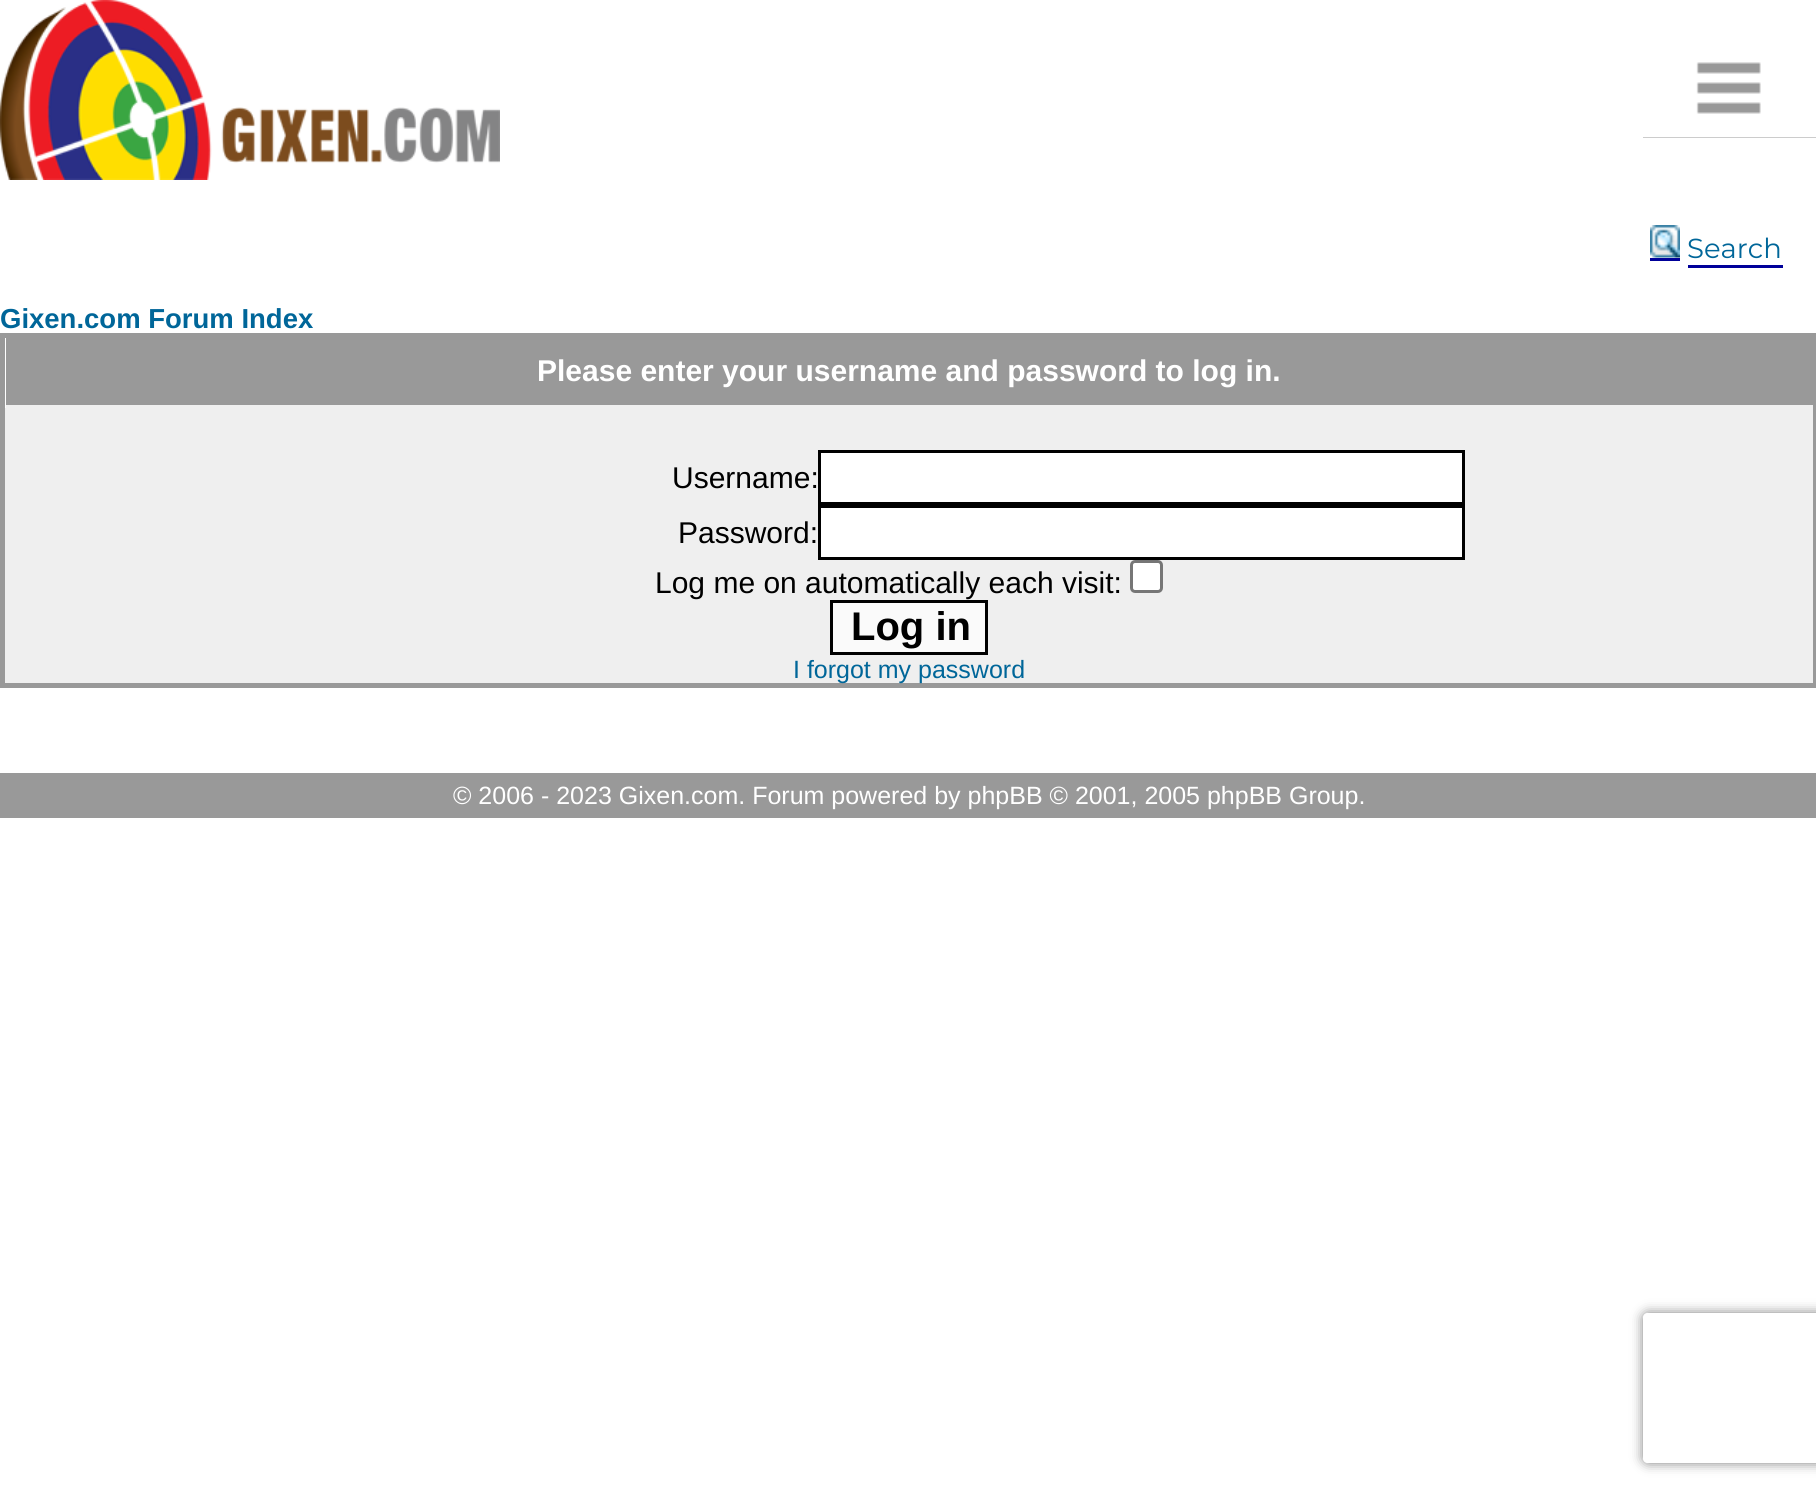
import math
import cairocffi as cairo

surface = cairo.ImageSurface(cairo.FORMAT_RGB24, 1816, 1496)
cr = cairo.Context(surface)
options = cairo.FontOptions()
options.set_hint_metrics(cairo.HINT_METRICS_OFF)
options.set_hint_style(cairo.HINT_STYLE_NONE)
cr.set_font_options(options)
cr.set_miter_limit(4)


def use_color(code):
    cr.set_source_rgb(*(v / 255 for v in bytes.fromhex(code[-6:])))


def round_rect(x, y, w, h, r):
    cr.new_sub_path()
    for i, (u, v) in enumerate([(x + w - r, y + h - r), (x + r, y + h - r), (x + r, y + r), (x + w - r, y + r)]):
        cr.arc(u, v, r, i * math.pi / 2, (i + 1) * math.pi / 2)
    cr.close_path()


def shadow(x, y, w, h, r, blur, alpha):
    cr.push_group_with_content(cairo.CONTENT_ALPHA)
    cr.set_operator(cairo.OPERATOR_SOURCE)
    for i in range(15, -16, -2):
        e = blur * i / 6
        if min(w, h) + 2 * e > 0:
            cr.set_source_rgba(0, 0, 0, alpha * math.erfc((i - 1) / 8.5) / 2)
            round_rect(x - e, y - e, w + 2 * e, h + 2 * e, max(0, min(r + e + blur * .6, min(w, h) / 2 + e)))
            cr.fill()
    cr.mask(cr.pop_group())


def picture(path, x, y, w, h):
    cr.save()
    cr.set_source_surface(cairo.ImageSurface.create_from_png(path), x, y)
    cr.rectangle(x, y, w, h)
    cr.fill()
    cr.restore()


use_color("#ffffff")
cr.paint()
picture("img1.png", 0, 0, 500, 180)
use_color("#999999")
cr.rectangle(1643, 62, 173, 76)
cr.fill()
picture("img2.png", 1643, 0, 173, 138)
picture("img3.png", 1650, 225, 30, 33)
cr.select_font_face("Montserrat")
cr.set_font_size(27.5)
use_color("#006699")
cr.move_to(1687, 258)
cr.show_text("Search")
use_color("#000099")
cr.rectangle(1650, 258, 30, 3)
cr.fill()
cr.rectangle(1688, 265, 95, 3)
cr.fill()
cr.select_font_face("Liberation Sans", cairo.FONT_SLANT_NORMAL, cairo.FONT_WEIGHT_BOLD)
use_color("#006699")
cr.move_to(0, 328)
cr.show_text("Gixen.com Forum Index")
use_color("#999999")
cr.rectangle(0, 333, 1816, 5)
cr.fill()
cr.rectangle(1813, 333, 3, 355)
cr.fill()
cr.rectangle(0, 683, 1816, 5)
cr.fill()
cr.rectangle(0, 333, 5, 355)
cr.fill()
cr.rectangle(6, 338, 1807, 67)
cr.fill()
use_color("#efefef")
cr.rectangle(5, 405, 1808, 278)
cr.fill()
use_color("#ffffff")
cr.rectangle(5, 405, 1, 3)
cr.fill()
cr.set_font_size(30)
cr.move_to(537, 381)
cr.show_text("Please enter your username and password to log in.")
cr.select_font_face("Liberation Sans")
use_color("#000000")
cr.move_to(672, 488)
cr.show_text("Username:")
use_color("#ffffff")
cr.rectangle(819.5, 451.5, 644, 52)
cr.fill_preserve()
use_color("#000000")
cr.set_line_width(3)
cr.stroke()
cr.move_to(678, 543)
cr.show_text("Password:")
use_color("#ffffff")
cr.rectangle(819.5, 506.5, 644, 52)
cr.fill_preserve()
use_color("#000000")
cr.stroke()
cr.move_to(655, 593)
cr.show_text("Log me on automatically each visit:")
use_color("#ffffff")
round_rect(1131.5, 561.5, 30, 30, 3.5)
cr.fill_preserve()
use_color("#767676")
cr.stroke()
use_color("#fafafa")
cr.rectangle(831.5, 601.5, 155, 52)
cr.fill_preserve()
use_color("#000000")
cr.stroke()
cr.select_font_face("Liberation Sans", cairo.FONT_SLANT_NORMAL, cairo.FONT_WEIGHT_BOLD)
cr.set_font_size(40)
cr.move_to(851, 640)
cr.show_text("Log in")
cr.select_font_face("Liberation Sans")
cr.set_font_size(25)
use_color("#006699")
cr.move_to(793, 678)
cr.show_text("I forgot my password")
use_color("#999999")
cr.rectangle(0, 773, 1816, 45)
cr.fill()
use_color("#ffffff")
cr.move_to(453, 804)
cr.show_text("© 2006 - 2023 Gixen.com. Forum powered by phpBB © 2001, 2005 phpBB Group.")
cr.save()
cr.set_fill_rule(cairo.FILL_RULE_EVEN_ODD)
cr.new_path()
cr.move_to(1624, 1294)
cr.line_to(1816, 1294)
cr.line_to(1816, 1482)
cr.line_to(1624, 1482)
cr.close_path()
cr.move_to(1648, 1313)
cr.line_to(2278, 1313)
cr.curve_to(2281, 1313, 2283, 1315, 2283, 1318)
cr.line_to(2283, 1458)
cr.curve_to(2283, 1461, 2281, 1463, 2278, 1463)
cr.line_to(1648, 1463)
cr.curve_to(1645, 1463, 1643, 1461, 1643, 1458)
cr.line_to(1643, 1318)
cr.curve_to(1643, 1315, 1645, 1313, 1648, 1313)
cr.close_path()
cr.clip()
use_color("#808080")
shadow(1643, 1313, 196, 150, 5, 6, 1)
cr.restore()
surface.write_to_png("result.png")
